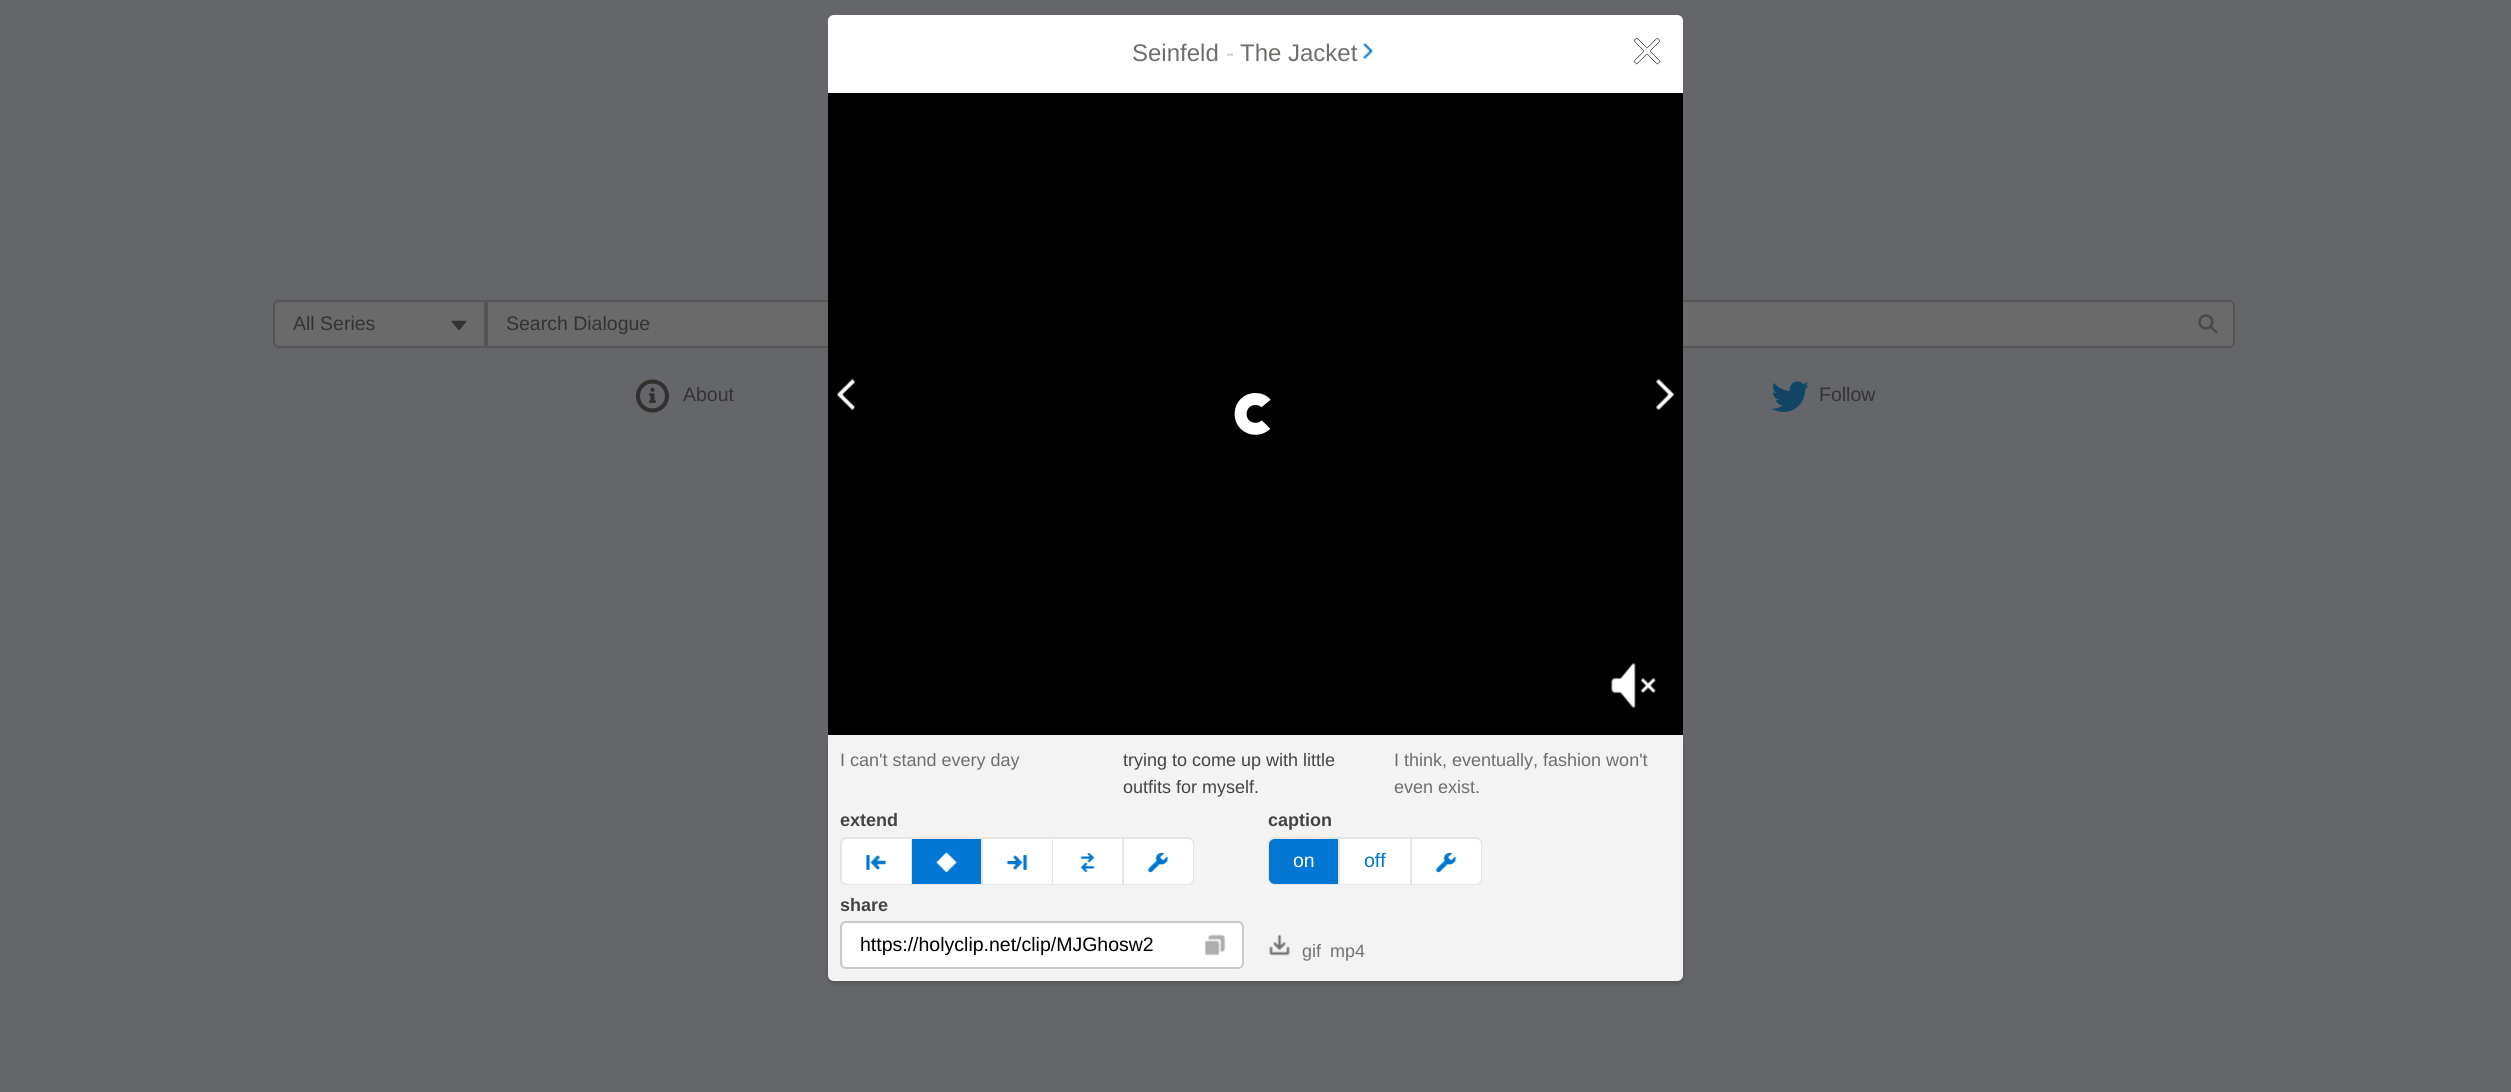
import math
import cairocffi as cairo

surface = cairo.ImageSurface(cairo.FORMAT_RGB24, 2511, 1092)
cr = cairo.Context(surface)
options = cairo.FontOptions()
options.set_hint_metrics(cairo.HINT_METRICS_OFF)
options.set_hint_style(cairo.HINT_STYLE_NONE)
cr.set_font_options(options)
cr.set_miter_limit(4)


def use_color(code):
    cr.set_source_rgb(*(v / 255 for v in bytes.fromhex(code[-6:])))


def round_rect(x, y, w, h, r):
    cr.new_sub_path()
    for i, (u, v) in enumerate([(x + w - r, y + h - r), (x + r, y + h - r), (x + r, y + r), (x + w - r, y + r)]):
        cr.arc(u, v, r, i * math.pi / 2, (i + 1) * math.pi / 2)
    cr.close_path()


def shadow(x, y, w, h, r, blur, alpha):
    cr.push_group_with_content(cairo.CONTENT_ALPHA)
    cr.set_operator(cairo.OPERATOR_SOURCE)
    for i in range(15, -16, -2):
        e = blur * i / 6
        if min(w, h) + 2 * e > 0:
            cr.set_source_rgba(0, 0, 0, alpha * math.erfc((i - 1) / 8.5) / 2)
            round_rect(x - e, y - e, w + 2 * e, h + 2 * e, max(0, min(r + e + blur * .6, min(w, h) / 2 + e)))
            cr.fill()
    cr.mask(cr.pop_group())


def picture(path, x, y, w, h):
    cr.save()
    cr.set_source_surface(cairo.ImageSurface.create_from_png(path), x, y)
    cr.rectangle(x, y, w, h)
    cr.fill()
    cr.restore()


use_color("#64666a")
cr.paint()
use_color("#ffffff")
cr.new_path()
cr.move_to(834, 15)
cr.line_to(1677, 15)
cr.curve_to(1680.5, 15, 1683, 17.5, 1683, 21)
cr.line_to(1683, 93)
cr.line_to(828, 93)
cr.line_to(828, 21)
cr.curve_to(828, 17.5, 830.5, 15, 834, 15)
cr.close_path()
cr.fill()
cr.select_font_face("Liberation Sans")
cr.set_font_size(24)
use_color("#706e6b")
cr.move_to(1132, 61)
cr.show_text("Seinfeld")
use_color("#cccccc")
cr.move_to(1226, 61)
cr.show_text("-")
use_color("#706e6b")
cr.move_to(1240, 61)
cr.show_text("The Jacket")
picture("img1.png", 1363, 43, 10, 16)
picture("img2.png", 1633, 37, 28, 28)
use_color("#000000")
shadow(828, 738, 855, 246, 6, 2, 0.16)
use_color("#6b6a6a")
cr.new_path()
cr.move_to(487, 301)
cr.line_to(2229, 301)
cr.curve_to(2232, 301, 2234, 303, 2234, 306)
cr.line_to(2234, 342)
cr.curve_to(2234, 345, 2232, 347, 2229, 347)
cr.line_to(487, 347)
cr.close_path()
cr.fill_preserve()
use_color("#555555")
cr.stroke()
use_color("#000000")
cr.rectangle(828, 93, 855, 642)
cr.fill()
picture("img3.png", 837, 378, 18, 33)
picture("img4.png", 1655, 378, 20, 33)
cr.new_path()
cr.move_to(1266, 424.5)
cr.curve_to(1262.5, 428, 1257.5, 429.5, 1252.5, 428.5)
cr.curve_to(1235, 425, 1237.5, 399, 1255.5, 399)
cr.curve_to(1259.5, 399, 1263.5, 400.5, 1266, 403.5)
use_color("#ffffff")
cr.set_line_width(12)
cr.stroke()
picture("img5.png", 1610, 662, 46, 47)
use_color("#f3f3f3")
cr.new_path()
cr.move_to(828, 735)
cr.line_to(1683, 735)
cr.line_to(1683, 975)
cr.curve_to(1683, 978.5, 1680.5, 981, 1677, 981)
cr.line_to(834, 981)
cr.curve_to(830.5, 981, 828, 978.5, 828, 975)
cr.close_path()
cr.fill()
cr.set_font_size(18)
use_color("#706e6b")
cr.move_to(840, 766)
cr.show_text("I can't stand every day")
use_color("#444444")
cr.move_to(1123, 766)
cr.show_text("trying to come up with little")
cr.move_to(1123, 793)
cr.show_text("outfits for myself.")
use_color("#706e6b")
cr.move_to(1394, 766)
cr.show_text("I think, eventually, fashion won't")
cr.move_to(1394, 793)
cr.show_text("even exist.")
cr.select_font_face("Liberation Sans", cairo.FONT_SLANT_NORMAL, cairo.FONT_WEIGHT_BOLD)
use_color("#444444")
cr.move_to(840, 826)
cr.show_text("extend")
round_rect(841, 838, 352, 46, 5)
use_color("#e5e5e5")
cr.set_line_width(2)
cr.stroke()
use_color("#ffffff")
cr.new_path()
cr.move_to(848, 839)
cr.line_to(911, 839)
cr.line_to(911, 884)
cr.line_to(848, 884)
cr.curve_to(844.5, 884, 842, 881.5, 842, 878)
cr.line_to(842, 845)
cr.curve_to(842, 841.5, 844.5, 839, 848, 839)
cr.close_path()
cr.fill()
picture("img6.png", 866, 855, 21, 15)
use_color("#e5e5e5")
cr.rectangle(911, 839, 1, 45)
cr.fill()
use_color("#0176d3")
cr.rectangle(912, 839, 69, 45)
cr.fill()
picture("img7.png", 936, 852, 21, 21)
use_color("#e5e5e5")
cr.rectangle(981, 839, 2, 45)
cr.fill()
use_color("#ffffff")
cr.rectangle(983, 839, 69, 45)
cr.fill()
picture("img8.png", 1006, 855, 22, 15)
use_color("#e5e5e5")
cr.rectangle(1052, 839, 1, 45)
cr.fill()
use_color("#ffffff")
cr.rectangle(1053, 839, 69, 45)
cr.fill()
picture("img9.png", 1080, 852, 15, 21)
use_color("#e5e5e5")
cr.rectangle(1122, 839, 2, 45)
cr.fill()
use_color("#ffffff")
cr.new_path()
cr.move_to(1124, 839)
cr.line_to(1187, 839)
cr.curve_to(1190.5, 839, 1193, 841.5, 1193, 845)
cr.line_to(1193, 878)
cr.curve_to(1193, 881.5, 1190.5, 884, 1187, 884)
cr.line_to(1124, 884)
cr.close_path()
cr.fill()
picture("img10.png", 1147, 852, 22, 21)
use_color("#444444")
cr.move_to(1268, 826)
cr.show_text("caption")
round_rect(1269, 838, 212, 46, 5)
use_color("#e5e5e5")
cr.stroke()
use_color("#0176d3")
cr.new_path()
cr.move_to(1275, 839)
cr.line_to(1338, 839)
cr.line_to(1338, 884)
cr.line_to(1275, 884)
cr.curve_to(1271.5, 884, 1269, 881.5, 1269, 878)
cr.line_to(1269, 845)
cr.curve_to(1269, 841.5, 1271.5, 839, 1275, 839)
cr.close_path()
cr.fill()
cr.select_font_face("Liberation Sans")
cr.set_font_size(19.5)
use_color("#ffffff")
cr.move_to(1293, 867)
cr.show_text("on")
use_color("#e5e5e5")
cr.rectangle(1338, 839, 2, 45)
cr.fill()
use_color("#ffffff")
cr.rectangle(1340, 839, 70, 45)
cr.fill()
use_color("#0176d3")
cr.move_to(1364, 867)
cr.show_text("off")
use_color("#e5e5e5")
cr.rectangle(1410, 839, 2, 45)
cr.fill()
use_color("#ffffff")
cr.new_path()
cr.move_to(1412, 839)
cr.line_to(1475, 839)
cr.curve_to(1478.5, 839, 1481, 841.5, 1481, 845)
cr.line_to(1481, 878)
cr.curve_to(1481, 881.5, 1478.5, 884, 1475, 884)
cr.line_to(1412, 884)
cr.close_path()
cr.fill()
picture("img11.png", 1435, 852, 22, 21)
cr.select_font_face("Liberation Sans", cairo.FONT_SLANT_NORMAL, cairo.FONT_WEIGHT_BOLD)
cr.set_font_size(18)
use_color("#444444")
cr.move_to(840, 911)
cr.show_text("share")
use_color("#ffffff")
round_rect(841, 922, 402, 46, 5)
cr.fill_preserve()
use_color("#c9c9c9")
cr.stroke()
cr.select_font_face("Liberation Sans")
cr.set_font_size(19.5)
use_color("#000000")
cr.move_to(860, 951)
cr.show_text("https://holyclip.net/clip/MJGhosw2")
picture("img12.png", 1204, 934, 22, 22)
picture("img13.png", 1269, 934, 21, 22)
cr.set_font_size(18)
use_color("#747474")
cr.move_to(1302, 957)
cr.show_text("gif")
cr.move_to(1330, 957)
cr.show_text("mp4")
use_color("#6b6a6a")
cr.new_path()
cr.move_to(279, 301)
cr.line_to(485, 301)
cr.line_to(485, 347)
cr.line_to(279, 347)
cr.curve_to(276, 347, 274, 345, 274, 342)
cr.line_to(274, 306)
cr.curve_to(274, 303, 276, 301, 279, 301)
cr.close_path()
cr.fill_preserve()
use_color("#555555")
cr.stroke()
cr.set_font_size(19.5)
use_color("#333333")
cr.move_to(293, 330)
cr.show_text("All Series")
picture("img14.png", 451, 320, 16, 11)
cr.move_to(506, 330)
cr.show_text("Search Dialogue")
picture("img15.png", 2198, 314, 20, 20)
picture("img16.png", 635, 379, 35, 34)
cr.move_to(683, 401)
cr.show_text("About")
picture("img17.png", 1772, 381, 36, 31)
cr.move_to(1819, 401)
cr.show_text("Follow")
surface.write_to_png("result.png")
